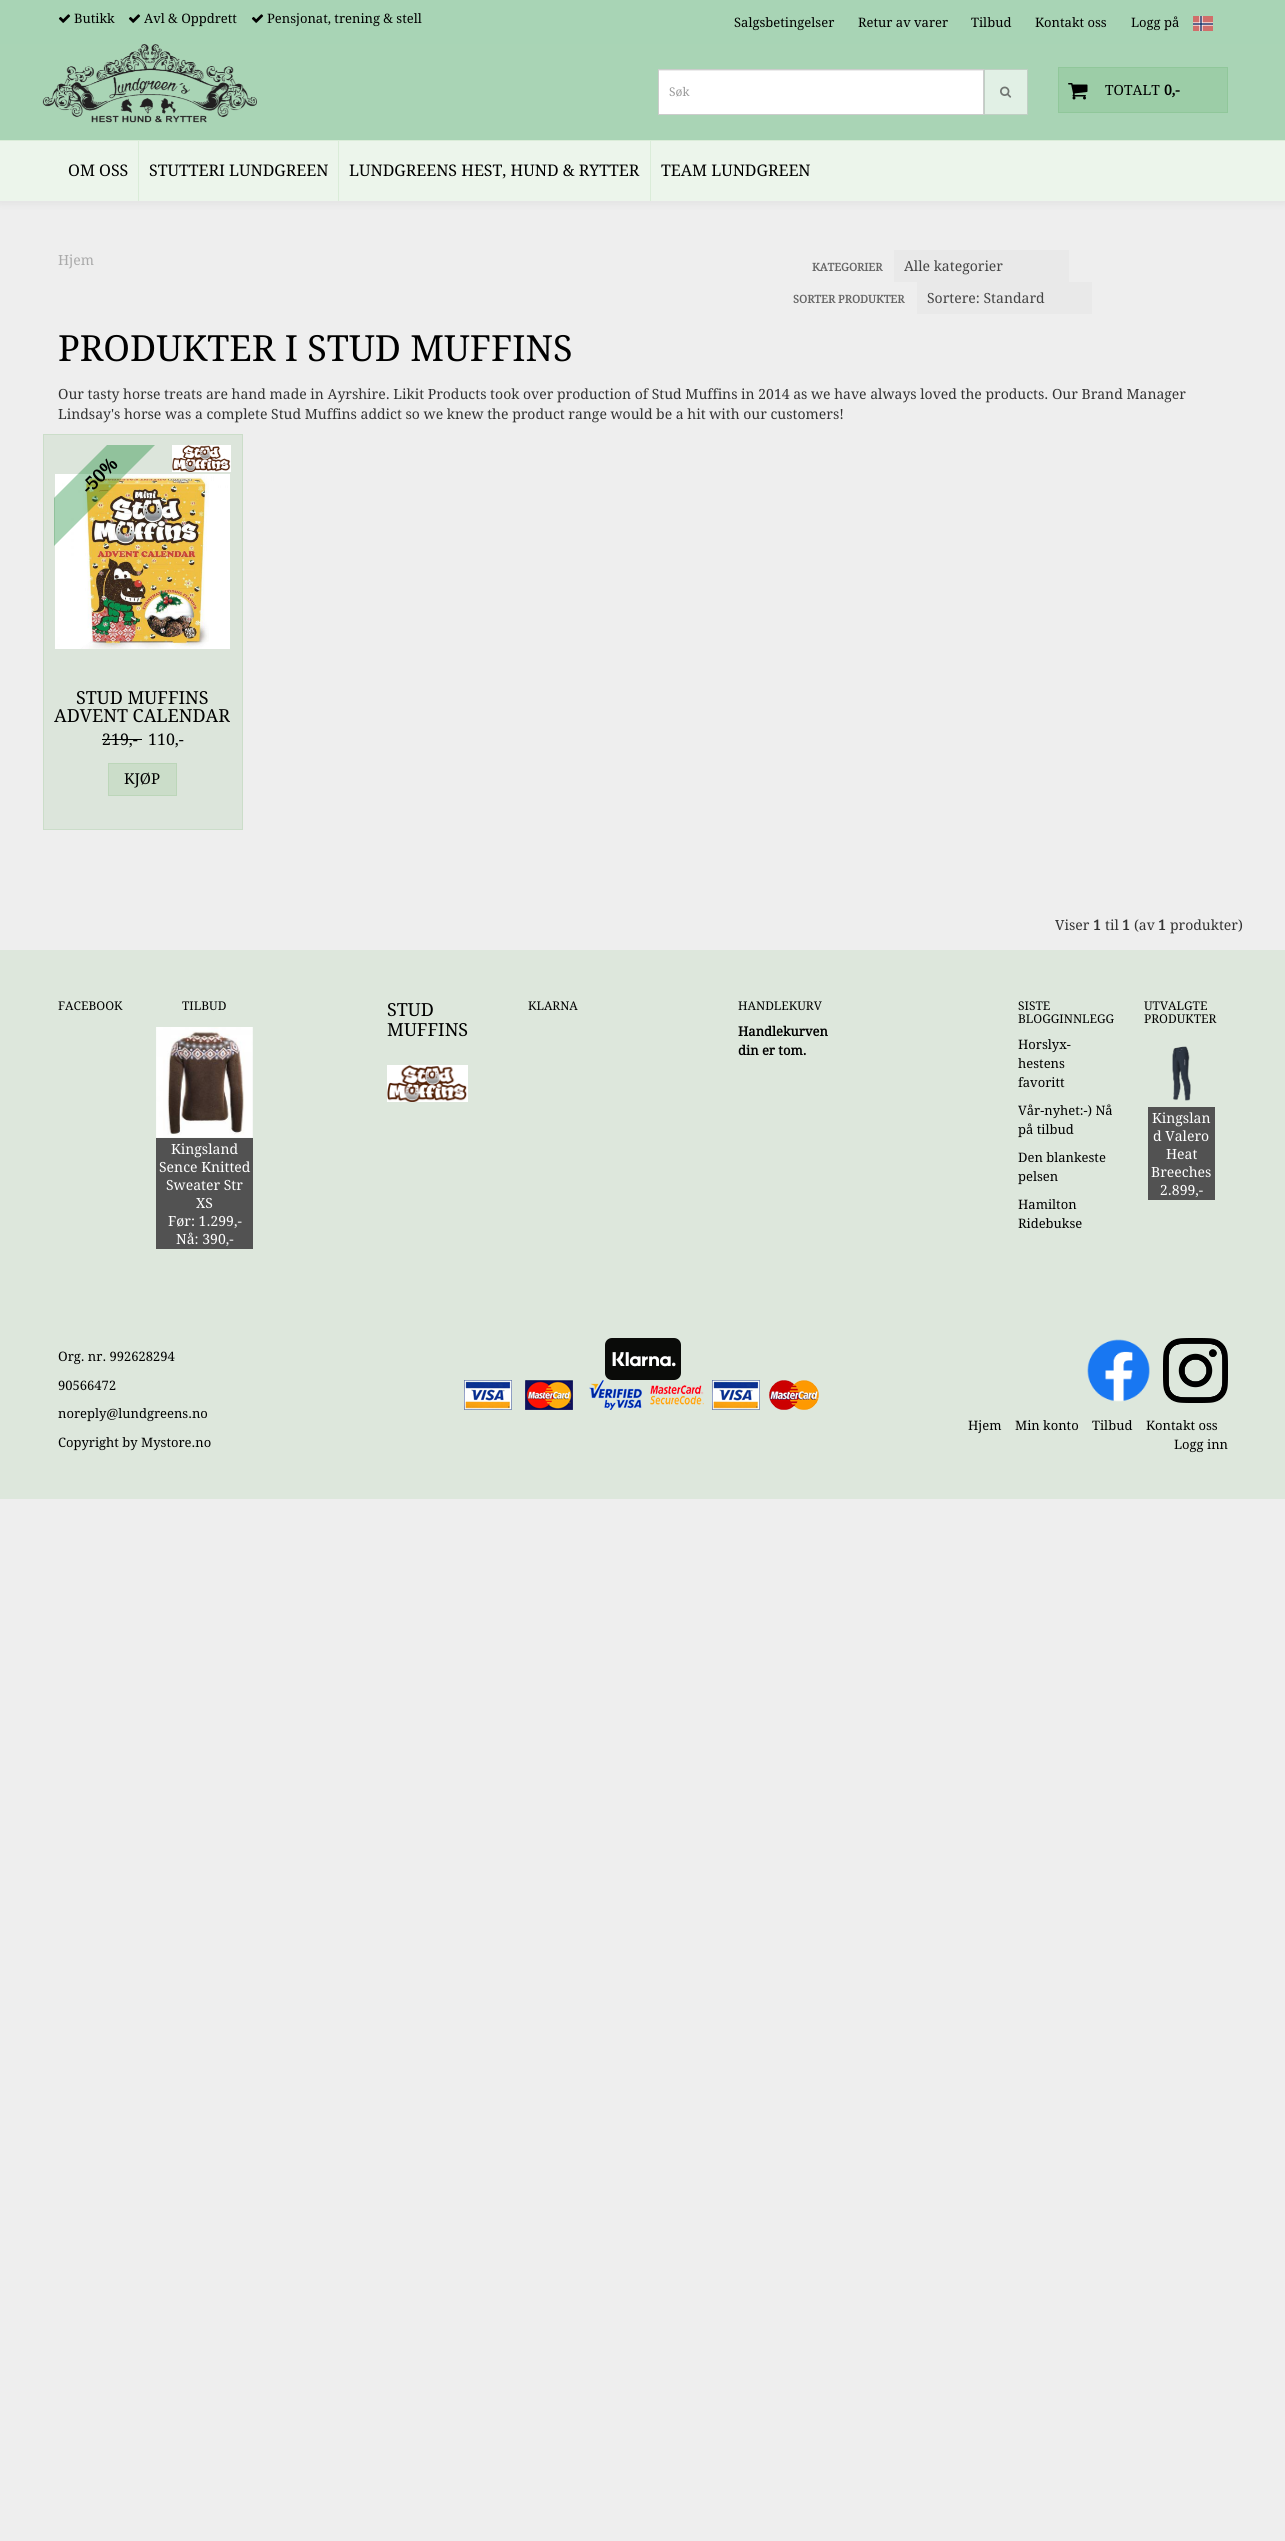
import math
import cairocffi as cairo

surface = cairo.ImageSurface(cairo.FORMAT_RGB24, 1285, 2541)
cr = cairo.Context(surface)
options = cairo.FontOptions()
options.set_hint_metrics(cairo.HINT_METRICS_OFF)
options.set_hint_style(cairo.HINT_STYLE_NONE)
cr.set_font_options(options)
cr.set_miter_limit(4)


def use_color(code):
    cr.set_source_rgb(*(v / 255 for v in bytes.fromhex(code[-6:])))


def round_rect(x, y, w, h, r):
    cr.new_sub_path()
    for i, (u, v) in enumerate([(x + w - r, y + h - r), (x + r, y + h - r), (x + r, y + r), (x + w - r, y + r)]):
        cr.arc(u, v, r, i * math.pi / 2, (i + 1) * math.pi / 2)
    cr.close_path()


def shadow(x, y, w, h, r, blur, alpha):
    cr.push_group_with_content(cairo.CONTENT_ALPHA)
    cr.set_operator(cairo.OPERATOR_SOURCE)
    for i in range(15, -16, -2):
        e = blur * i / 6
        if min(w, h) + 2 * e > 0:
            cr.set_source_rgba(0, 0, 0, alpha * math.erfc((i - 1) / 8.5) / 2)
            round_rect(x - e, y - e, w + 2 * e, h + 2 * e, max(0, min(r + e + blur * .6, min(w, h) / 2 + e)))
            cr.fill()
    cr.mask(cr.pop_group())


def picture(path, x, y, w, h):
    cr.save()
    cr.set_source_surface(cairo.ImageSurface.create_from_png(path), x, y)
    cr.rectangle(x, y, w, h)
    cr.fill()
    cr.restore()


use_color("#eeeeee")
cr.paint()
use_color("#000000")
shadow(-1, -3, 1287, 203, 0, 5.5, 0.1)
use_color("#a8d4b5")
cr.rectangle(0, 0, 1285, 44)
cr.fill()
picture("img1.png", 58, 14, 13, 9)
cr.select_font_face("Droid Serif")
cr.set_font_size(13)
use_color("#000000")
cr.move_to(74, 23)
cr.show_text("Butikk")
picture("img1.png", 128, 14, 13, 9)
cr.move_to(144, 23)
cr.show_text("Avl & Oppdrett")
picture("img1.png", 251, 14, 13, 9)
cr.move_to(267, 23)
cr.show_text("Pensjonat, trening & stell")
cr.move_to(734, 27)
cr.show_text("Salgsbetingelser")
cr.move_to(858, 27)
cr.show_text("Retur av varer")
cr.move_to(971, 27)
cr.show_text("Tilbud")
cr.move_to(1035, 27)
cr.show_text("Kontakt oss")
cr.move_to(1131, 27)
cr.show_text("Logg på")
picture("img2.png", 1193, 16, 20, 15)
use_color("#a9d4b5")
cr.rectangle(0, 44, 1285, 96)
cr.fill()
picture("img3.png", 42, 44, 215, 79)
use_color("#ffffff")
cr.rectangle(659, 71, 324, 43)
cr.fill()
use_color("#ececec")
cr.rectangle(659, 70, 324, 1)
cr.fill()
cr.rectangle(658.5, 69.5, 325, 45)
use_color("#cccccc")
cr.set_line_width(1)
cr.stroke()
cr.set_font_size(12)
use_color("#999999")
cr.move_to(669, 96)
cr.show_text("Søk")
use_color("#e1f0e5")
cr.rectangle(984.5, 69.5, 43, 45)
cr.fill_preserve()
use_color("#c0cfc4")
cr.stroke()
picture("img4.png", 1000, 86, 12, 12)
use_color("#9ccda7")
cr.rectangle(1058.5, 67.5, 169, 45)
cr.fill_preserve()
use_color("#90c79a")
cr.stroke()
picture("img5.png", 1068, 83, 20, 17)
cr.set_font_size(14)
use_color("#000000")
cr.move_to(1105, 95)
cr.show_text("TOTALT")
cr.select_font_face("Droid Serif", cairo.FONT_SLANT_NORMAL, cairo.FONT_WEIGHT_BOLD)
cr.move_to(1164, 95)
cr.show_text("0,-")
use_color("#ecf5eb")
cr.rectangle(0, 141, 1285, 60)
cr.fill()
use_color("#daecd8")
cr.rectangle(0, 140, 1285, 1)
cr.fill()
cr.rectangle(138, 141, 1, 60)
cr.fill()
cr.select_font_face("Droid Serif")
cr.set_font_size(16)
use_color("#000000")
cr.move_to(68, 176)
cr.show_text("OM OSS")
use_color("#daecd8")
cr.rectangle(338, 141, 1, 60)
cr.fill()
use_color("#000000")
cr.move_to(149, 176)
cr.show_text("STUTTERI LUNDGREEN")
use_color("#daecd8")
cr.rectangle(650, 141, 1, 60)
cr.fill()
use_color("#000000")
cr.move_to(349, 176)
cr.show_text("LUNDGREENS HEST, HUND & RYTTER")
cr.move_to(661, 176)
cr.show_text("TEAM LUNDGREEN")
cr.set_font_size(14)
use_color("#aaaaaa")
cr.move_to(58, 265)
cr.show_text("Hjem")
cr.select_font_face("Droid Serif", cairo.FONT_SLANT_NORMAL, cairo.FONT_WEIGHT_BOLD)
cr.set_font_size(11)
use_color("#666666")
cr.move_to(812, 271)
cr.show_text("KATEGORIER")
use_color("#e9e9e9")
cr.rectangle(894, 250, 175, 32)
cr.fill()
cr.select_font_face("Droid Serif")
cr.set_font_size(14)
use_color("#444444")
cr.move_to(904, 271)
cr.show_text("Alle kategorier")
cr.select_font_face("Droid Serif", cairo.FONT_SLANT_NORMAL, cairo.FONT_WEIGHT_BOLD)
cr.set_font_size(11)
use_color("#666666")
cr.move_to(793, 303)
cr.show_text("SORTER PRODUKTER")
use_color("#e9e9e9")
cr.rectangle(917, 282, 175, 32)
cr.fill()
cr.select_font_face("Droid Serif")
cr.set_font_size(14)
use_color("#444444")
cr.move_to(927, 303)
cr.show_text("Sortere: Standard")
cr.set_font_size(36)
use_color("#000000")
cr.move_to(58, 361)
cr.show_text("PRODUKTER I STUD MUFFINS")
cr.set_font_size(14)
use_color("#333333")
cr.move_to(58, 399)
cr.show_text("Our tasty horse treats are hand made in Ayrshire. Likit Products took over production of Stud Muffins in 2014 as we have always loved the products. Our Brand Manager")
cr.move_to(58, 419)
cr.show_text("Lindsay's horse was a complete Stud Muffins addict so we knew the product range would be a hit with our customers!")
use_color("#dce5db")
cr.rectangle(43.5, 434.5, 199, 395)
cr.fill_preserve()
use_color("#cbddc9")
cr.stroke()
picture("img6.png", 55, 474, 175, 175)
cr.save()
cr.rectangle(54, 445, 178, 234)
cr.clip()
cr.set_source_rgba(0, 0.502, 0.141, 0.34)
cr.new_path()
cr.move_to(26, 526)
cr.line_to(143, 409)
cr.line_to(167, 433)
cr.line_to(50, 550)
cr.close_path()
cr.fill()
cr.restore()
cr.select_font_face("Droid Serif", cairo.FONT_SLANT_NORMAL, cairo.FONT_WEIGHT_BOLD)
cr.set_font_size(18)
use_color("#000000")
cr.save()
cr.translate(89, 495)
cr.rotate(-45 * math.pi / 180)
cr.move_to(0, 0)
cr.show_text("-50%")
cr.restore()
picture("img7.png", 172, 445, 59, 27)
cr.select_font_face("Droid Serif")
cr.move_to(76, 704)
cr.show_text("STUD MUFFINS")
cr.move_to(54, 722)
cr.show_text("ADVENT CALENDAR")
cr.set_font_size(16)
cr.move_to(102, 745)
cr.show_text("219,-")
cr.rectangle(102, 739, 40, 1)
cr.fill()
cr.move_to(148, 745)
cr.show_text("110,-")
use_color("#cbddc9")
cr.rectangle(108.5, 763.5, 68, 32)
cr.fill_preserve()
use_color("#bcd6b9")
cr.stroke()
cr.set_font_size(15)
use_color("#000000")
cr.move_to(124, 784)
cr.show_text("KJØP")
cr.set_font_size(14)
use_color("#333333")
cr.move_to(1055, 930)
cr.show_text("Viser")
cr.select_font_face("Droid Serif", cairo.FONT_SLANT_NORMAL, cairo.FONT_WEIGHT_BOLD)
cr.move_to(1093, 930)
cr.show_text("1")
cr.select_font_face("Droid Serif")
cr.move_to(1105, 930)
cr.show_text("til")
cr.select_font_face("Droid Serif", cairo.FONT_SLANT_NORMAL, cairo.FONT_WEIGHT_BOLD)
cr.move_to(1122, 930)
cr.show_text("1")
cr.select_font_face("Droid Serif")
cr.move_to(1134, 930)
cr.show_text("(av")
cr.select_font_face("Droid Serif", cairo.FONT_SLANT_NORMAL, cairo.FONT_WEIGHT_BOLD)
cr.move_to(1158, 930)
cr.show_text("1")
cr.select_font_face("Droid Serif")
cr.move_to(1170, 930)
cr.show_text("produkter)")
use_color("#dde7dc")
cr.rectangle(0, 950, 1285, 549)
cr.fill()
cr.set_font_size(12)
use_color("#000000")
cr.move_to(58, 1010)
cr.show_text("FACEBOOK")
cr.move_to(182, 1010)
cr.show_text("TILBUD")
picture("img8.png", 156, 1027, 97, 111)
use_color("#525252")
cr.rectangle(156, 1138, 97, 111)
cr.fill()
cr.set_font_size(14)
use_color("#ffffff")
cr.move_to(171, 1154)
cr.show_text("Kingsland")
cr.move_to(159, 1172)
cr.show_text("Sence Knitted")
cr.move_to(166, 1190)
cr.show_text("Sweater Str")
cr.move_to(196, 1208)
cr.show_text("XS")
cr.move_to(168, 1226)
cr.show_text("Før: 1.299,-")
cr.move_to(176, 1244)
cr.show_text("Nå: 390,-")
cr.set_font_size(18)
use_color("#000000")
cr.move_to(387, 1016)
cr.show_text("STUD")
cr.move_to(387, 1036)
cr.show_text("MUFFINS")
picture("img9.png", 387, 1065, 81, 37)
cr.set_font_size(12)
cr.move_to(528, 1010)
cr.show_text("KLARNA")
cr.move_to(738, 1010)
cr.show_text("HANDLEKURV")
cr.select_font_face("Droid Serif", cairo.FONT_SLANT_NORMAL, cairo.FONT_WEIGHT_BOLD)
cr.set_font_size(13)
cr.move_to(738, 1036)
cr.show_text("Handlekurven")
cr.move_to(738, 1055)
cr.show_text("din er tom.")
cr.select_font_face("Droid Serif")
cr.set_font_size(12)
cr.move_to(1018, 1010)
cr.show_text("SISTE")
cr.move_to(1018, 1023)
cr.show_text("BLOGGINNLEGG")
cr.set_font_size(13)
cr.move_to(1018, 1049)
cr.show_text("Horslyx-")
cr.move_to(1018, 1068)
cr.show_text("hestens")
cr.move_to(1018, 1087)
cr.show_text("favoritt")
cr.move_to(1018, 1115)
cr.show_text("Vår-nyhet:-) Nå")
cr.move_to(1018, 1134)
cr.show_text("på tilbud")
cr.move_to(1018, 1162)
cr.show_text("Den blankeste")
cr.move_to(1018, 1181)
cr.show_text("pelsen")
cr.move_to(1018, 1209)
cr.show_text("Hamilton")
cr.move_to(1018, 1228)
cr.show_text("Ridebukse")
cr.set_font_size(12)
cr.move_to(1144, 1010)
cr.show_text("UTVALGTE")
cr.move_to(1144, 1023)
cr.show_text("PRODUKTER")
picture("img10.png", 1172, 1046, 19, 55)
use_color("#525252")
cr.rectangle(1148, 1107, 67, 93)
cr.fill()
cr.set_font_size(14)
use_color("#ffffff")
cr.move_to(1152, 1123)
cr.show_text("Kingslan")
cr.move_to(1153, 1141)
cr.show_text("d Valero")
cr.move_to(1166, 1159)
cr.show_text("Heat")
cr.move_to(1151, 1177)
cr.show_text("Breeches")
cr.move_to(1160, 1195)
cr.show_text("2.899,-")
cr.set_font_size(13)
use_color("#000000")
cr.move_to(58, 1361)
cr.show_text("Org. nr. 992628294")
cr.move_to(58, 1390)
cr.show_text("90566472")
cr.move_to(58, 1418)
cr.show_text("noreply@lundgreens.no")
cr.move_to(58, 1447)
cr.show_text("Copyright by Mystore.no")
picture("img11.png", 605, 1338, 76, 42)
picture("img12.png", 464, 1380, 48, 30)
picture("img13.png", 525, 1380, 48, 30)
picture("img14.png", 589, 1380, 230, 30)
picture("img15.png", 1087, 1339, 63, 63)
picture("img16.png", 1163, 1338, 65, 65)
cr.move_to(968, 1430)
cr.show_text("Hjem")
cr.move_to(1015, 1430)
cr.show_text("Min konto")
cr.move_to(1092, 1430)
cr.show_text("Tilbud")
cr.move_to(1146, 1430)
cr.show_text("Kontakt oss")
cr.move_to(1174, 1449)
cr.show_text("Logg inn")
surface.write_to_png("result.png")
